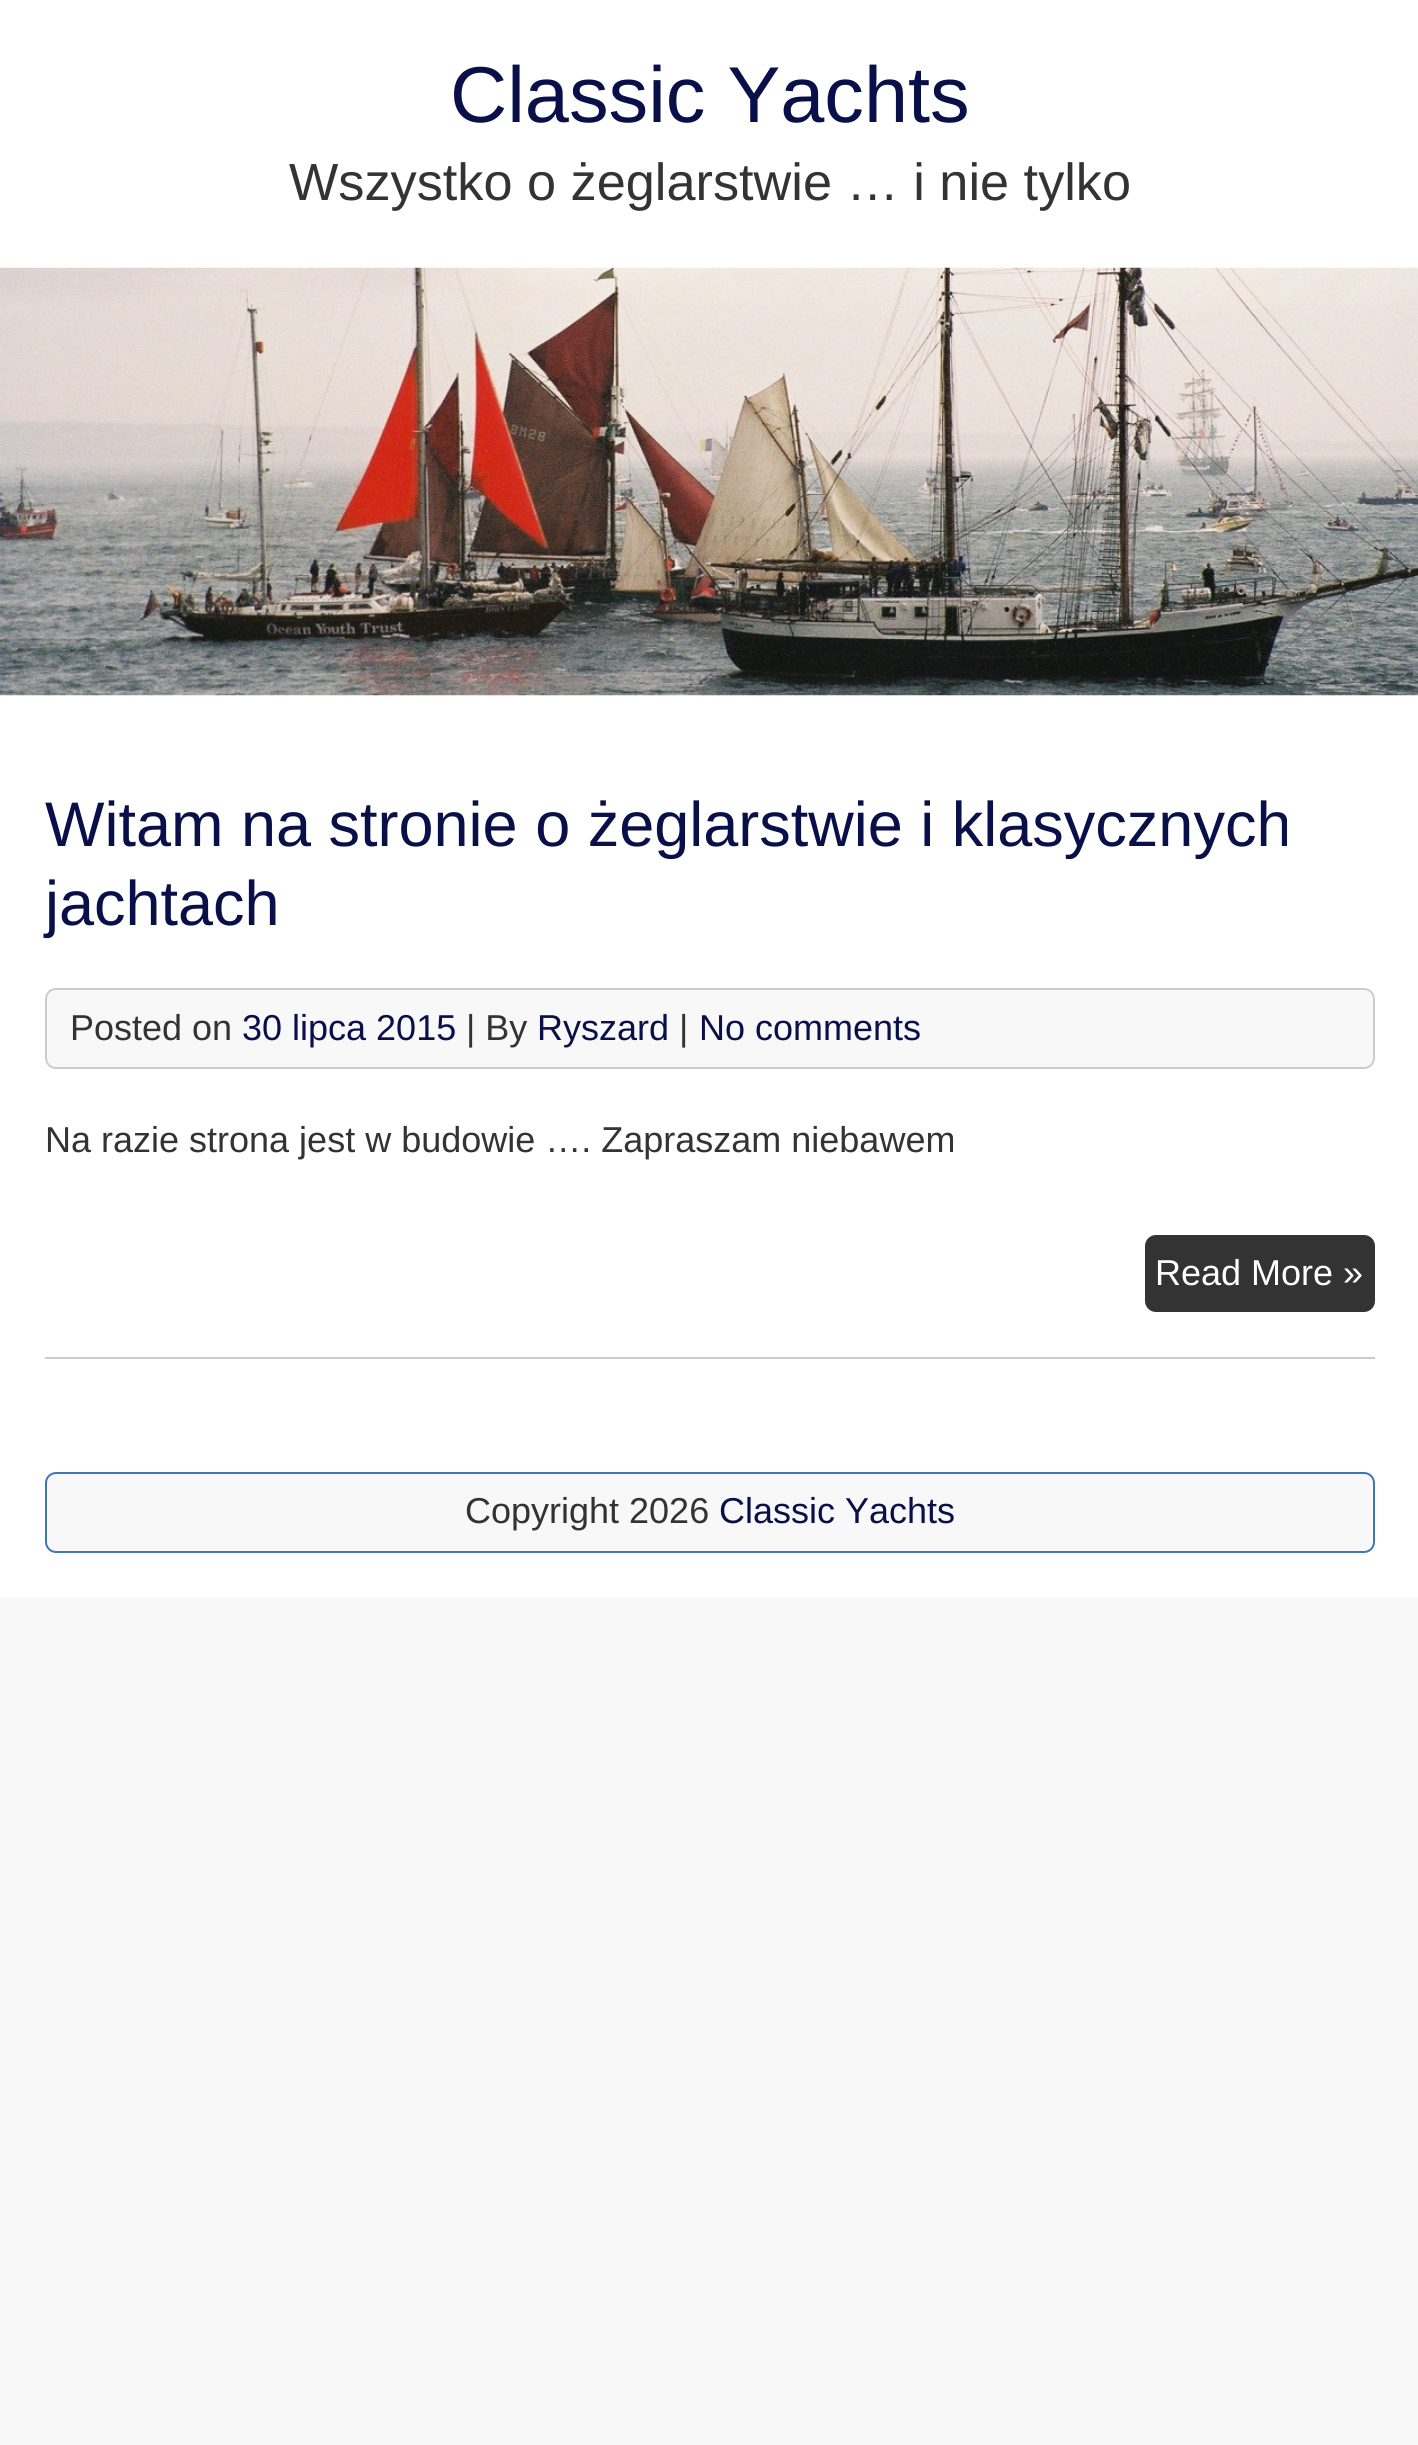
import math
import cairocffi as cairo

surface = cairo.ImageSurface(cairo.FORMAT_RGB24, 1418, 2445)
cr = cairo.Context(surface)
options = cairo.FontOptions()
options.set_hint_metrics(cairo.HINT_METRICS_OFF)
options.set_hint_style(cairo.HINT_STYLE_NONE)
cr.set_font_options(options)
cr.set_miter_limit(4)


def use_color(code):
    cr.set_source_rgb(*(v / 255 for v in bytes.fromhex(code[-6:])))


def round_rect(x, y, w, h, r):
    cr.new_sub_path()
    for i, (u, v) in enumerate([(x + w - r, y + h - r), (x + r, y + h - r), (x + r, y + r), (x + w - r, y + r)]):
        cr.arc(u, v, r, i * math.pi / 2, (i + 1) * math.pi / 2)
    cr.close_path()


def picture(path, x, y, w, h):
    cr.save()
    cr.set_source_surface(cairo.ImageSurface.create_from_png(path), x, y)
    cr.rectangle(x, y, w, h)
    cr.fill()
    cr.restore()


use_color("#f8f8f8")
cr.paint()
use_color("#ffffff")
cr.rectangle(0, 0, 1418, 1598)
cr.fill()
cr.select_font_face("Liberation Sans")
cr.set_font_size(79.25)
use_color("#090f49")
cr.move_to(450, 122)
cr.show_text("Classic Yachts")
cr.set_font_size(52.25)
use_color("#333333")
cr.move_to(289, 200)
cr.show_text("Wszystko o żeglarstwie … i nie tylko")
picture("img1.png", 0, 267, 1418, 429)
use_color("#cccccc")
cr.rectangle(45, 1357, 1330, 2)
cr.fill()
cr.set_font_size(63)
use_color("#090f49")
cr.move_to(45, 846)
cr.show_text("Witam na stronie o żeglarstwie i klasycznych")
cr.move_to(45, 925)
cr.show_text("jachtach")
use_color("#f8f8f8")
round_rect(46, 989, 1328, 79, 10)
cr.fill_preserve()
use_color("#cccccc")
cr.stroke()
cr.set_font_size(36)
use_color("#333333")
cr.move_to(70, 1040)
cr.show_text("Posted on")
use_color("#090f49")
cr.move_to(242, 1040)
cr.show_text("30 lipca 2015")
use_color("#333333")
cr.move_to(466, 1040)
cr.show_text("| By")
use_color("#090f49")
cr.move_to(537, 1040)
cr.show_text("Ryszard")
use_color("#333333")
cr.move_to(679, 1040)
cr.show_text("|")
use_color("#090f49")
cr.move_to(699, 1040)
cr.show_text("No comments")
use_color("#333333")
cr.move_to(45, 1152)
cr.show_text("Na razie strona jest w budowie …. Zapraszam niebawem")
round_rect(1145, 1235, 230, 77, 11)
cr.fill()
use_color("#ffffff")
cr.move_to(1155, 1285)
cr.show_text("Read More »")
use_color("#f8f8f8")
round_rect(46, 1473, 1328, 79, 10)
cr.fill_preserve()
use_color("#4076b3")
cr.stroke()
use_color("#333333")
cr.move_to(465, 1523)
cr.show_text("Copyright 2026")
use_color("#090f49")
cr.move_to(719, 1523)
cr.show_text("Classic Yachts")
surface.write_to_png("result.png")
